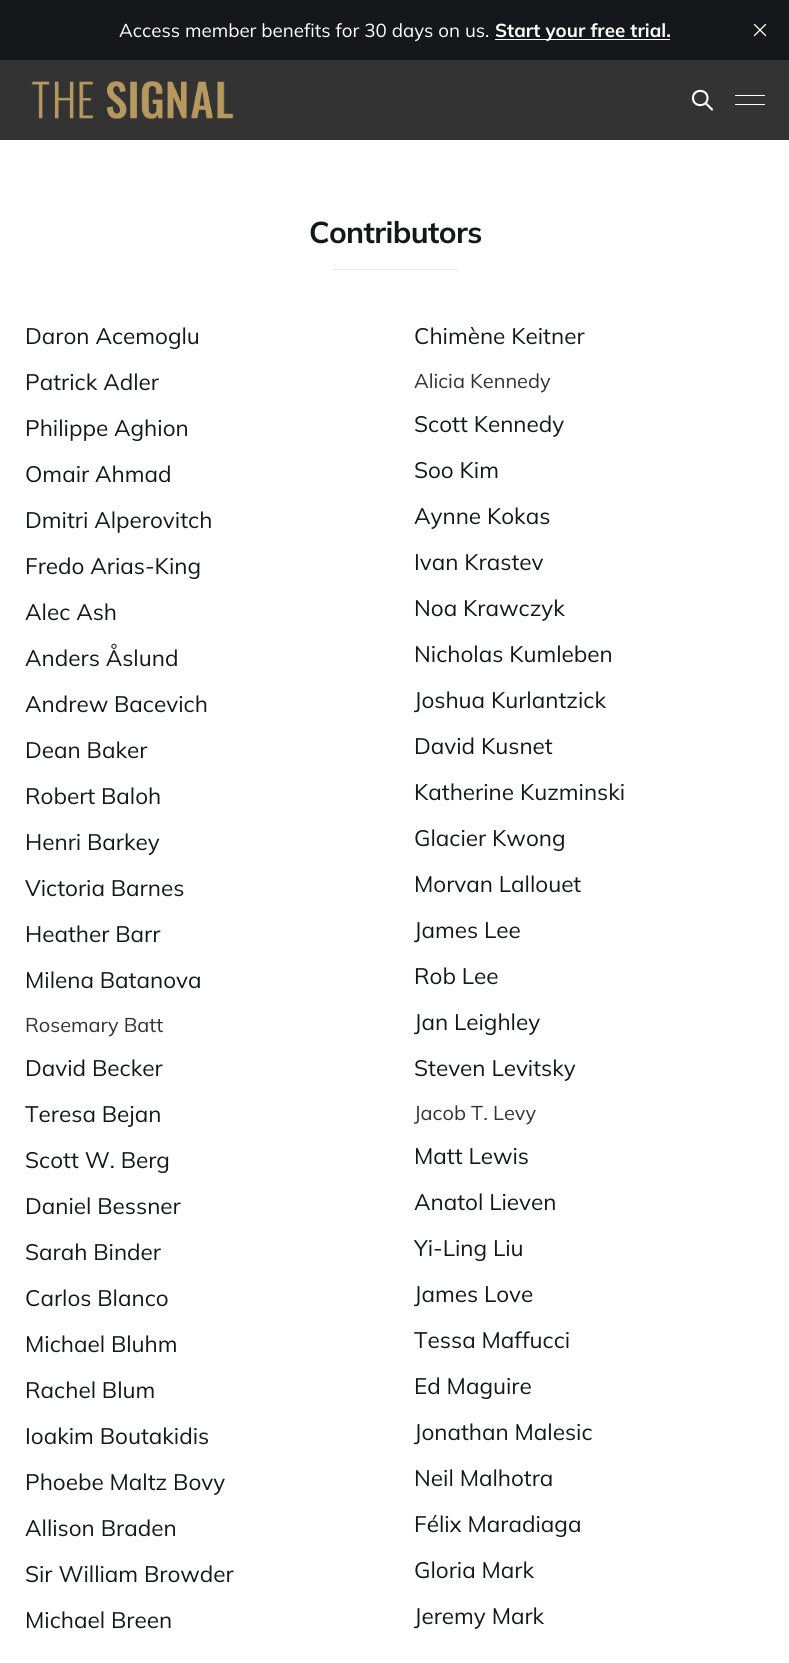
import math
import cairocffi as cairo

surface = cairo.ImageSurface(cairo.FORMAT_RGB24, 789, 1663)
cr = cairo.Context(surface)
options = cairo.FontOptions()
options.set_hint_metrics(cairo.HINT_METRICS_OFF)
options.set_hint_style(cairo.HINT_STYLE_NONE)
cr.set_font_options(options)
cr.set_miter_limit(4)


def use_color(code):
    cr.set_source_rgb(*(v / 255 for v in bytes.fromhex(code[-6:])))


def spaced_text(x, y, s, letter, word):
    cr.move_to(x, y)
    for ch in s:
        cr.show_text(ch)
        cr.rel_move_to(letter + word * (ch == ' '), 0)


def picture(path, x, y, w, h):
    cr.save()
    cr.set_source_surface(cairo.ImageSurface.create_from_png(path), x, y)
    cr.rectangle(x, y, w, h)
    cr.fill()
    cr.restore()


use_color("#ffffff")
cr.paint()
use_color("#15171a")
cr.rectangle(0, 0, 789, 60)
cr.fill()
cr.select_font_face("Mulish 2 ExtraLight")
cr.set_font_size(18.75)
use_color("#ffffff")
cr.move_to(119, 37)
cr.show_text("Access member benefits for 30 days on us.")
cr.rectangle(495, 39, 175, 1)
cr.fill()
cr.select_font_face("Mulish ExtraLight")
cr.move_to(495, 37)
cr.show_text("Start your free trial.")
picture("img1.png", 753, 23, 14, 14)
use_color("#333333")
cr.rectangle(0, 60, 789, 80)
cr.fill()
picture("img2.png", 31, 81, 203, 38)
cr.new_path()
cr.move_to(712, 109.5)
cr.line_to(705.5, 103)
cr.move_to(707.5, 98)
cr.curve_to(707.5, 107.5, 693, 107.5, 693, 98)
cr.curve_to(693, 88.5, 707.5, 88.5, 707.5, 98)
cr.close_path()
use_color("#ffffff")
cr.set_line_width(2.1)
cr.set_line_cap(cairo.LINE_CAP_ROUND)
cr.set_line_join(cairo.LINE_JOIN_ROUND)
cr.stroke()
cr.rectangle(735, 95, 30, 1)
cr.fill()
cr.rectangle(735, 104, 30, 1)
cr.fill()
cr.set_font_size(30)
use_color("#15171a")
spaced_text(309, 243, "Contributors", -0.6, 0)
use_color("#e5e7eb")
cr.rectangle(333, 269, 125, 1)
cr.fill()
cr.select_font_face("Mulish 2 ExtraLight")
cr.set_font_size(22.5)
use_color("#15171a")
cr.move_to(25, 344)
cr.show_text("Daron Acemoglu")
cr.move_to(414, 344)
cr.show_text("Chimène Keitner")
cr.move_to(25, 390)
cr.show_text("Patrick Adler")
cr.set_font_size(20)
use_color("#333333")
cr.move_to(414, 388)
cr.show_text("Alicia Kennedy")
cr.set_font_size(22.5)
use_color("#15171a")
cr.move_to(25, 436)
cr.show_text("Philippe Aghion")
cr.move_to(414, 432)
cr.show_text("Scott Kennedy")
cr.move_to(25, 482)
cr.show_text("Omair Ahmad")
cr.move_to(414, 478)
cr.show_text("Soo Kim")
cr.move_to(25, 528)
cr.show_text("Dmitri Alperovitch")
cr.move_to(414, 524)
cr.show_text("Aynne Kokas")
cr.move_to(25, 574)
cr.show_text("Fredo Arias-King")
cr.move_to(414, 570)
cr.show_text("Ivan Krastev")
cr.move_to(25, 620)
cr.show_text("Alec Ash")
cr.move_to(414, 616)
cr.show_text("Noa Krawczyk")
cr.move_to(25, 666)
cr.show_text("Anders Åslund")
cr.move_to(414, 662)
cr.show_text("Nicholas Kumleben")
cr.move_to(25, 712)
cr.show_text("Andrew Bacevich")
cr.move_to(414, 708)
cr.show_text("Joshua Kurlantzick")
cr.move_to(25, 758)
cr.show_text("Dean Baker")
cr.move_to(414, 754)
cr.show_text("David Kusnet")
cr.move_to(25, 804)
cr.show_text("Robert Baloh")
cr.move_to(414, 800)
cr.show_text("Katherine Kuzminski")
cr.move_to(25, 850)
cr.show_text("Henri Barkey")
cr.move_to(414, 846)
cr.show_text("Glacier Kwong")
cr.move_to(25, 896)
cr.show_text("Victoria Barnes")
cr.move_to(414, 892)
cr.show_text("Morvan Lallouet")
cr.move_to(25, 942)
cr.show_text("Heather Barr")
cr.move_to(414, 938)
cr.show_text("James Lee")
cr.move_to(25, 988)
cr.show_text("Milena Batanova")
cr.move_to(414, 984)
cr.show_text("Rob Lee")
cr.set_font_size(20)
use_color("#333333")
cr.move_to(25, 1032)
cr.show_text("Rosemary Batt")
cr.set_font_size(22.5)
use_color("#15171a")
cr.move_to(414, 1030)
cr.show_text("Jan Leighley")
cr.move_to(25, 1076)
cr.show_text("David Becker")
cr.move_to(414, 1076)
cr.show_text("Steven Levitsky")
cr.move_to(25, 1122)
cr.show_text("Teresa Bejan")
cr.set_font_size(20)
use_color("#333333")
cr.move_to(414, 1120)
cr.show_text("Jacob T. Levy")
cr.set_font_size(22.5)
use_color("#15171a")
cr.move_to(25, 1168)
cr.show_text("Scott W. Berg")
cr.move_to(414, 1164)
cr.show_text("Matt Lewis")
cr.move_to(25, 1214)
cr.show_text("Daniel Bessner")
cr.move_to(414, 1210)
cr.show_text("Anatol Lieven")
cr.move_to(25, 1260)
cr.show_text("Sarah Binder")
cr.move_to(414, 1256)
cr.show_text("Yi-Ling Liu")
cr.move_to(25, 1306)
cr.show_text("Carlos Blanco")
cr.move_to(414, 1302)
cr.show_text("James Love")
cr.move_to(25, 1352)
cr.show_text("Michael Bluhm")
cr.move_to(414, 1348)
cr.show_text("Tessa Maffucci")
cr.move_to(25, 1398)
cr.show_text("Rachel Blum")
cr.move_to(414, 1394)
cr.show_text("Ed Maguire")
cr.move_to(25, 1444)
cr.show_text("Ioakim Boutakidis")
cr.move_to(414, 1440)
cr.show_text("Jonathan Malesic")
cr.move_to(25, 1490)
cr.show_text("Phoebe Maltz Bovy")
cr.move_to(414, 1486)
cr.show_text("Neil Malhotra")
cr.move_to(25, 1536)
cr.show_text("Allison Braden")
cr.move_to(414, 1532)
cr.show_text("Félix Maradiaga")
cr.move_to(25, 1582)
cr.show_text("Sir William Browder")
cr.move_to(414, 1578)
cr.show_text("Gloria Mark")
cr.move_to(25, 1628)
cr.show_text("Michael Breen")
cr.move_to(414, 1624)
cr.show_text("Jeremy Mark")
surface.write_to_png("result.png")
